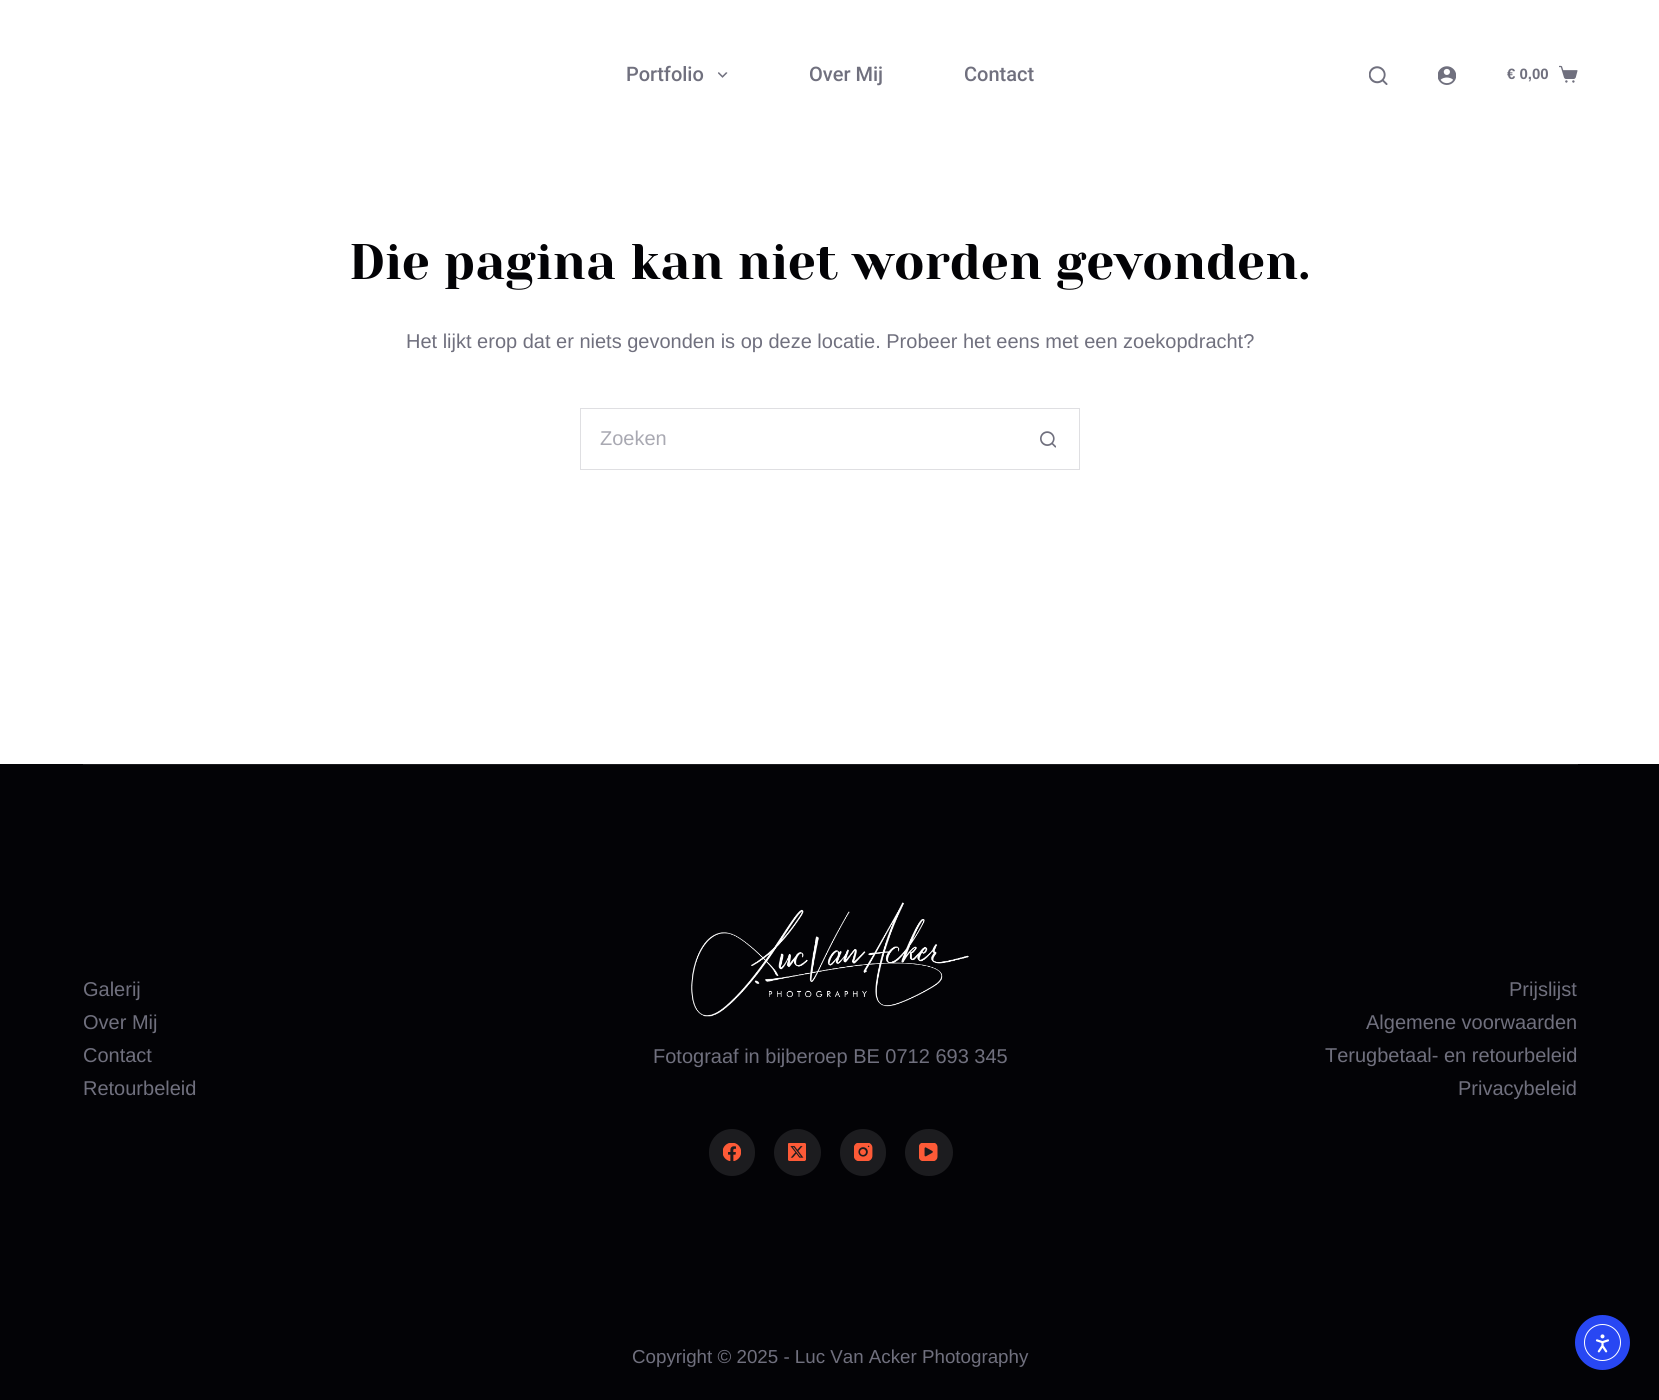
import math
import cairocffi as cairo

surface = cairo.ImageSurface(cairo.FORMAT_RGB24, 1659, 1400)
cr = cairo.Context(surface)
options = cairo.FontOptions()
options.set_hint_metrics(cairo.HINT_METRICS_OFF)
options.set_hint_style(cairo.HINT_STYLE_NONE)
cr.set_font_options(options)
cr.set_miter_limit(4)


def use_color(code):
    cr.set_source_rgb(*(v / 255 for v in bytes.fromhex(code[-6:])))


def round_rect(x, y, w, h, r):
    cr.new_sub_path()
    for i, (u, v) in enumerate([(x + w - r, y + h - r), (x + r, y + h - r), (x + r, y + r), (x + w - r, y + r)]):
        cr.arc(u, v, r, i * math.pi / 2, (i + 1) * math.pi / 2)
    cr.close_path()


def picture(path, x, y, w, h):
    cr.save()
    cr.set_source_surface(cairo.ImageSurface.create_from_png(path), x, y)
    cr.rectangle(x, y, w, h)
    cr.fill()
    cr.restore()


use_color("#ffffff")
cr.paint()
cr.select_font_face("Roboto Medium")
cr.set_font_size(20)
use_color("#70707e")
cr.move_to(626, 81)
cr.show_text("Portfolio")
picture("img1.png", 718, 72, 10, 6)
cr.move_to(809, 81)
cr.show_text("Over Mij")
cr.move_to(964, 81)
cr.show_text("Contact")
picture("img2.png", 1369, 66, 19, 19)
picture("img3.png", 1438, 66, 18, 19)
cr.select_font_face("Liberation Sans", cairo.FONT_SLANT_NORMAL, cairo.FONT_WEIGHT_BOLD)
cr.set_font_size(15)
cr.move_to(1507, 79)
cr.show_text("€ 0,00")
picture("img4.png", 1559, 65, 19, 18)
cr.select_font_face("Yeseva One")
cr.set_font_size(50)
use_color("#030306")
cr.move_to(349, 279)
cr.show_text("Die pagina kan niet worden gevonden.")
cr.select_font_face("Liberation Sans")
cr.set_font_size(20)
use_color("#70707e")
cr.move_to(406, 348)
cr.show_text("Het lijkt erop dat er niets gevonden is op deze locatie. Probeer het eens met een zoekopdracht?")
use_color("#dfdfe2")
cr.rectangle(580, 408, 500, 1)
cr.fill()
cr.rectangle(580, 469, 438, 1)
cr.fill()
cr.rectangle(580, 408, 1, 62)
cr.fill()
use_color("#a9a9b2")
cr.move_to(600, 445)
cr.show_text("Zoeken")
use_color("#dfdfe2")
cr.rectangle(1079, 408, 1, 62)
cr.fill()
cr.rectangle(1018, 469, 62, 1)
cr.fill()
picture("img5.png", 1040, 431, 16, 17)
use_color("#030306")
cr.rectangle(0, 764, 1659, 636)
cr.fill()
use_color("#1c1c1f")
cr.rectangle(83, 764, 1495, 1)
cr.fill()
use_color("#70707e")
cr.move_to(83, 996)
cr.show_text("Galerij")
cr.move_to(83, 1029)
cr.show_text("Over Mij")
cr.move_to(83, 1062)
cr.show_text("Contact")
cr.move_to(83, 1095)
cr.show_text("Retourbeleid")
picture("img6.png", 691, 902, 278, 115)
cr.move_to(653, 1063)
cr.show_text("Fotograaf in bijberoep BE 0712 693 345")
use_color("#1c1c1f")
round_rect(709, 1129, 46, 47, 23)
cr.fill()
picture("img7.png", 723, 1143, 18, 18)
cr.arc(797.5, 1152.5, 23.5, 0, 2 * math.pi)
cr.fill()
picture("img8.png", 788, 1143, 18, 18)
round_rect(840, 1129, 46, 47, 23)
cr.fill()
picture("img9.png", 854, 1143, 19, 18)
round_rect(905, 1129, 48, 47, 23.5)
cr.fill()
picture("img10.png", 919, 1143, 19, 18)
use_color("#70707e")
cr.move_to(1509, 996)
cr.show_text("Prijslijst")
cr.move_to(1366, 1029)
cr.show_text("Algemene voorwaarden")
cr.move_to(1325, 1062)
cr.show_text("Terugbetaal- en retourbeleid")
cr.move_to(1458, 1095)
cr.show_text("Privacybeleid")
cr.set_font_size(18.75)
cr.move_to(632, 1363)
cr.show_text("Copyright © 2025 - Luc Van Acker Photography")
use_color("#2847f3")
cr.new_path()
cr.arc(1602.5, 1342.5, 27.5, 0, 2 * math.pi)
cr.fill()
cr.arc(1602.5, 1342.5, 18, 0, 2 * math.pi)
use_color("#ffffff")
cr.set_line_width(1)
cr.stroke()
picture("img11.png", 1595, 1334, 14, 19)
surface.write_to_png("result.png")
